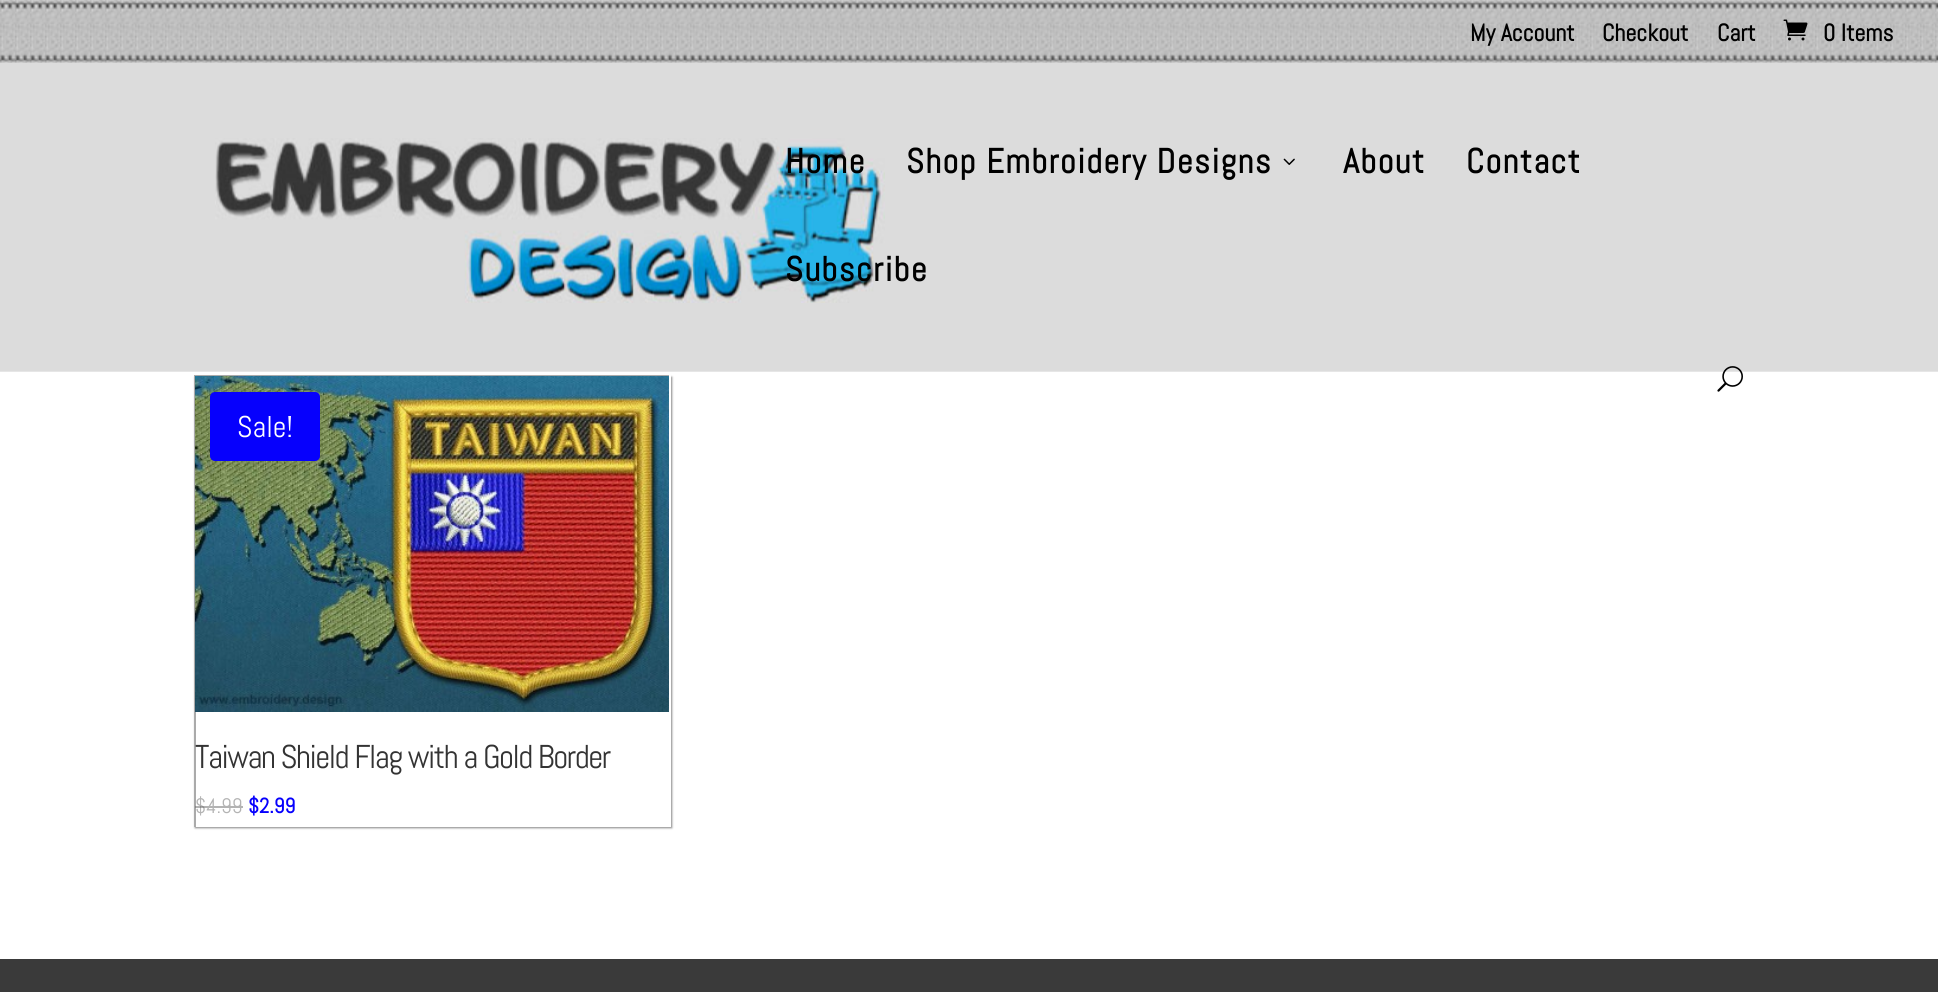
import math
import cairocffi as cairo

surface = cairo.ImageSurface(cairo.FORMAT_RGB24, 1938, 992)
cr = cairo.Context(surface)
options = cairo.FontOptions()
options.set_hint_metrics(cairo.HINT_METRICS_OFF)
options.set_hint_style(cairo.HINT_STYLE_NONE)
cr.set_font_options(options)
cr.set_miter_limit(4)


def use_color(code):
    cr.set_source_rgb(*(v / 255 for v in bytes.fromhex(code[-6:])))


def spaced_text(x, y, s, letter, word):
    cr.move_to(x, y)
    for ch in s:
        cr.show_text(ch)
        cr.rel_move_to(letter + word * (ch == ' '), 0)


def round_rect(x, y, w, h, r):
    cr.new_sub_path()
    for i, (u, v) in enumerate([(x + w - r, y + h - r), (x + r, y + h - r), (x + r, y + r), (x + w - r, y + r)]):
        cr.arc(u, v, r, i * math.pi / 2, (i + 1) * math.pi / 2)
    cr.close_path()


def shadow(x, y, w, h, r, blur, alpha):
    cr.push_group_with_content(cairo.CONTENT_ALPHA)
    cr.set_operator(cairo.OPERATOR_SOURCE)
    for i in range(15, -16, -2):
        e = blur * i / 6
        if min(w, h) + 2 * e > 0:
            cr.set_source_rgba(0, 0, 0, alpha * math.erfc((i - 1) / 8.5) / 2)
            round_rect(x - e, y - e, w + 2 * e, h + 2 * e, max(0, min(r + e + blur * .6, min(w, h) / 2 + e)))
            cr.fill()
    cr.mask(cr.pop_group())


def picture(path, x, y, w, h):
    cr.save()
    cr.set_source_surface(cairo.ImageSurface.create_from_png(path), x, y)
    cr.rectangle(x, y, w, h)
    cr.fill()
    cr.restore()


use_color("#ffffff")
cr.paint()
picture("img1.png", 0, 0, 1938, 63)
cr.select_font_face("Abel", cairo.FONT_SLANT_NORMAL, cairo.FONT_WEIGHT_BOLD)
cr.set_font_size(24)
use_color("#000000")
cr.move_to(1470, 41)
cr.show_text("My Account")
cr.move_to(1602, 41)
cr.show_text("Checkout")
cr.move_to(1717, 41)
cr.show_text("Cart")
picture("img2.png", 1783, 19, 25, 22)
cr.move_to(1823, 41)
cr.show_text("0 Items")
use_color("#e6e6e6")
cr.rectangle(0, 371, 1938, 1)
cr.fill()
use_color("#dcdcdc")
cr.rectangle(0, 63, 1938, 308)
cr.fill()
picture("img3.png", 215, 138, 670, 165)
cr.set_font_size(34.5)
use_color("#000000")
spaced_text(785, 173, "Home", 1.5, 0)
spaced_text(906, 173, "Shop Embroidery Designs", 1.5, 0)
picture("img4.png", 1283, 158, 12, 7)
spaced_text(1343, 173, "About", 1.5, 0)
spaced_text(1466, 173, "Contact", 1.5, 0)
spaced_text(785, 281, "Subscribe", 1.5, 0)
picture("img5.png", 1717, 366, 26, 26)
cr.save()
cr.set_fill_rule(cairo.FILL_RULE_EVEN_ODD)
cr.new_path()
cr.move_to(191, 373)
cr.line_to(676, 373)
cr.line_to(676, 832)
cr.line_to(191, 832)
cr.close_path()
cr.move_to(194, 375)
cr.line_to(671, 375)
cr.line_to(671, 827)
cr.line_to(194, 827)
cr.close_path()
cr.clip()
use_color("#888888")
shadow(195, 377, 477, 451, 0, 1, 1)
cr.restore()
use_color("#aaaaaa")
cr.rectangle(194, 375, 477, 1)
cr.fill()
use_color("#ffffff")
cr.rectangle(669, 375, 2, 452)
cr.fill()
cr.rectangle(194, 826, 477, 1)
cr.fill()
use_color("#aaaaaa")
cr.rectangle(194, 375, 2, 452)
cr.fill()
picture("img6.png", 195, 376, 474, 336)
use_color("#0600fd")
round_rect(210, 392, 110, 69, 5)
cr.fill()
cr.select_font_face("Abel")
cr.set_font_size(30)
use_color("#ffffff")
cr.move_to(237, 437)
cr.show_text("Sale!")
cr.set_font_size(33)
use_color("#333333")
spaced_text(195, 768, "Taiwan Shield Flag with a Gold Border", -1.5, 0)
cr.set_font_size(21)
use_color("#b3b3b3")
cr.move_to(195, 813)
cr.show_text("$4.99")
cr.set_source_rgba(0.4, 0.4, 0.4, 0.5)
cr.rectangle(195, 806, 11, 2)
cr.fill()
use_color("#b3b3b3")
cr.rectangle(206, 806, 37, 2)
cr.fill()
cr.select_font_face("Abel", cairo.FONT_SLANT_NORMAL, cairo.FONT_WEIGHT_BOLD)
use_color("#0600fd")
cr.move_to(248, 813)
cr.show_text("$2.99")
use_color("#3a3a3a")
cr.rectangle(0, 959, 1938, 33)
cr.fill()
surface.write_to_png("result.png")
